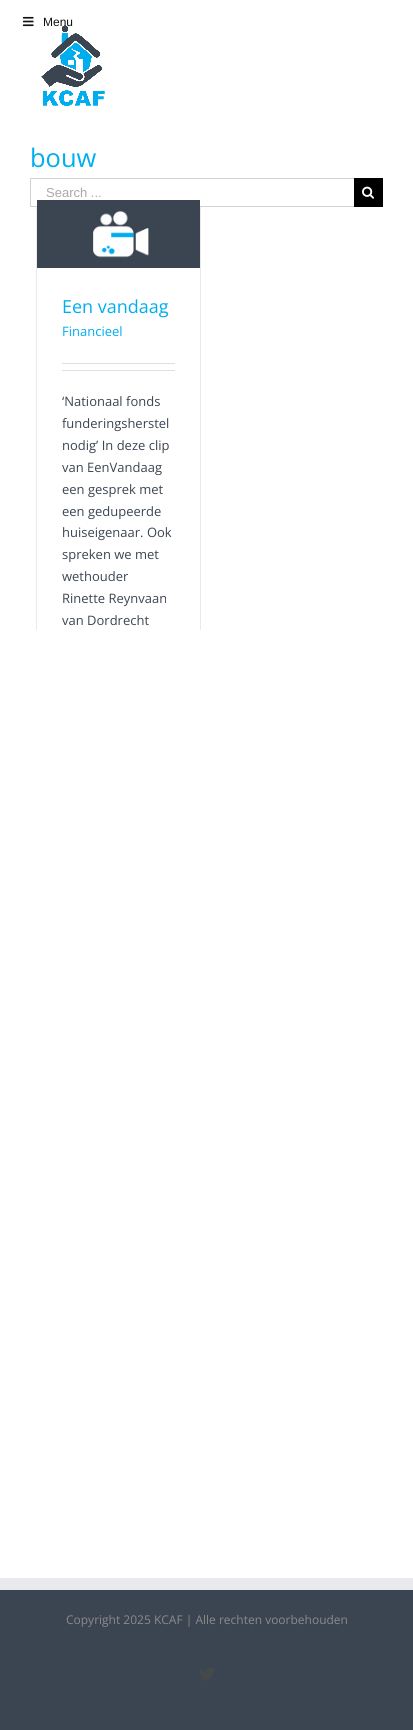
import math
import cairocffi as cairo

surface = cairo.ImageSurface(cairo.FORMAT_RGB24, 413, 1730)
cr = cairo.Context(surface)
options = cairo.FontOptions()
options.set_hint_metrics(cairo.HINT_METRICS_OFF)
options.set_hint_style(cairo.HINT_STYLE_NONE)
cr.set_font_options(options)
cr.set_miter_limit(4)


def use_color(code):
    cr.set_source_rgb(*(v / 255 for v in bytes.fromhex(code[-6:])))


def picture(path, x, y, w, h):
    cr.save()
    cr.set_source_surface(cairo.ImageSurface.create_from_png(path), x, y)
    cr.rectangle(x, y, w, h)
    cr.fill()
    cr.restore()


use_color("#ffffff")
cr.paint()
picture("img1.png", 23, 16, 11, 11)
picture("img2.png", 41, 25, 64, 81)
cr.select_font_face("Liberation Sans")
cr.set_font_size(12)
use_color("#111111")
cr.move_to(43, 26)
cr.show_text("Menu")
cr.select_font_face("Open Sans")
cr.set_font_size(25.5)
use_color("#00aeef")
cr.move_to(30, 167)
cr.show_text("bouw")
use_color("#ebeaea")
cr.rectangle(200, 199, 1, 431)
cr.fill()
cr.rectangle(36, 199, 1, 431)
cr.fill()
use_color("#ffffff")
cr.rectangle(36, 199, 165, 7)
cr.fill()
use_color("#d2d2d2")
cr.rectangle(30, 178, 324, 1)
cr.fill()
cr.rectangle(30, 206, 324, 1)
cr.fill()
cr.rectangle(30, 178, 1, 29)
cr.fill()
cr.select_font_face("Liberation Sans")
cr.set_font_size(13)
use_color("#aaa9a9")
cr.move_to(46, 197)
cr.show_text("Search ...")
use_color("#000000")
cr.rectangle(354, 178, 29, 29)
cr.fill()
picture("img3.png", 362, 186, 12, 13)
picture("img4.png", 37, 200, 163, 68)
cr.select_font_face("Open Sans")
cr.set_font_size(18)
use_color("#00aeef")
cr.move_to(62, 313)
cr.show_text("Een vandaag")
cr.set_font_size(13)
cr.move_to(62, 336)
cr.show_text("Financieel")
use_color("#e0dede")
cr.rectangle(62, 363, 113, 1)
cr.fill()
cr.rectangle(62, 370, 113, 1)
cr.fill()
use_color("#3b4552")
cr.move_to(62, 406)
cr.show_text("‘Nationaal fonds")
cr.move_to(62, 428)
cr.show_text("funderingsherstel")
cr.move_to(62, 450)
cr.show_text("nodig’ In deze clip")
cr.move_to(62, 472)
cr.show_text("van EenVandaag")
cr.move_to(62, 494)
cr.show_text("een gesprek met")
cr.move_to(62, 516)
cr.show_text("een gedupeerde")
cr.move_to(62, 537)
cr.show_text("huiseigenaar. Ook")
cr.move_to(62, 559)
cr.show_text("spreken we met")
cr.move_to(62, 581)
cr.show_text("wethouder")
cr.move_to(62, 603)
cr.show_text("Rinette Reynvaan")
cr.move_to(62, 625)
cr.show_text("van Dordrecht")
cr.rectangle(0, 1590, 413, 140)
cr.fill()
use_color("#e9eaee")
cr.rectangle(0, 1578, 413, 12)
cr.fill()
cr.set_font_size(12)
use_color("#8c8989")
cr.move_to(66, 1624)
cr.show_text("Copyright 2025 KCAF | Alle rechten voorbehouden")
picture("img5.png", 200, 1667, 15, 14)
surface.write_to_png("result.png")
